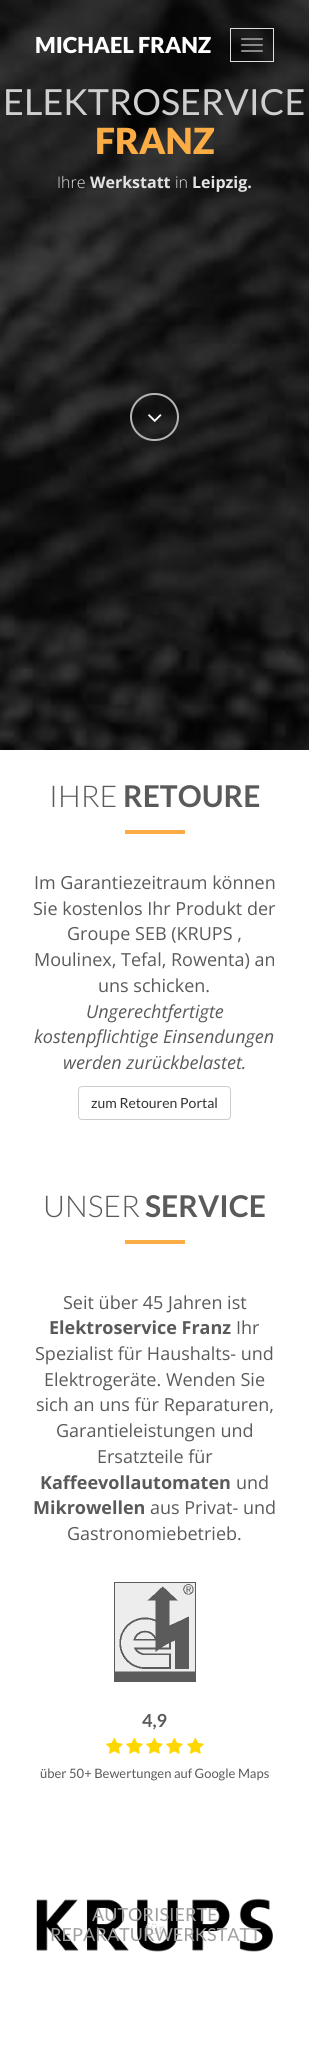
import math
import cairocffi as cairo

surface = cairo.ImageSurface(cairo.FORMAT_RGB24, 309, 2060)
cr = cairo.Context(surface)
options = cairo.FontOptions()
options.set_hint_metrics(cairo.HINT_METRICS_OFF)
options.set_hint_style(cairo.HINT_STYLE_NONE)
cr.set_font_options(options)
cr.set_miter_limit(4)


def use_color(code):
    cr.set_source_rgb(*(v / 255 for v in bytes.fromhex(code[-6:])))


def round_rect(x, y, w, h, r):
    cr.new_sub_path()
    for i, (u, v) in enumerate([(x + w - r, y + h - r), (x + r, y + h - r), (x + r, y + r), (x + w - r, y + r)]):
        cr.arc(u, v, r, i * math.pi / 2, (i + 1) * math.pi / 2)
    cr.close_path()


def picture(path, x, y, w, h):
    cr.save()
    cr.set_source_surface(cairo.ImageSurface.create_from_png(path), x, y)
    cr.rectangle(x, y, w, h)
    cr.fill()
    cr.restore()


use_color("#ffffff")
cr.paint()
picture("img1.png", 0, 0, 309, 750)
cr.select_font_face("Lato Black")
cr.set_font_size(22)
use_color("#ffffff")
cr.move_to(35, 53)
cr.show_text("MICHAEL FRANZ")
cr.rectangle(230.5, 28.5, 43, 33)
use_color("#dddddd")
cr.set_line_width(1)
cr.stroke()
use_color("#888888")
round_rect(241, 38, 22, 2, 1)
cr.fill()
round_rect(241, 44, 22, 2, 1)
cr.fill()
round_rect(241, 50, 22, 2, 1)
cr.fill()
cr.select_font_face("Lato")
cr.set_font_size(36)
use_color("#cfcfcf")
cr.move_to(3, 115)
cr.show_text("ELEKTROSERVICE")
cr.select_font_face("Lato Black")
use_color("#fcac45")
cr.move_to(95, 154)
cr.show_text("FRANZ")
cr.select_font_face("Open Sans Light")
cr.set_font_size(16)
use_color("#e3e3e3")
cr.move_to(57, 188)
cr.show_text("Ihre")
cr.select_font_face("Open Sans", cairo.FONT_SLANT_NORMAL, cairo.FONT_WEIGHT_BOLD)
cr.move_to(90, 188)
cr.show_text("Werkstatt")
cr.select_font_face("Open Sans Light")
cr.move_to(175, 188)
cr.show_text("in")
cr.select_font_face("Open Sans", cairo.FONT_SLANT_NORMAL, cairo.FONT_WEIGHT_BOLD)
cr.move_to(192, 188)
cr.show_text("Leipzig.")
round_rect(131, 394, 47, 46, 23)
use_color("#b4b4b4")
cr.set_line_width(2)
cr.stroke()
picture("img2.png", 148, 414, 14, 8)
cr.select_font_face("Lato Light")
cr.set_font_size(30)
use_color("#5a5a5a")
cr.move_to(49, 807)
cr.show_text("IHRE")
cr.select_font_face("Lato", cairo.FONT_SLANT_NORMAL, cairo.FONT_WEIGHT_BOLD)
cr.move_to(123, 807)
cr.show_text("RETOURE")
use_color("#fcac45")
cr.rectangle(125, 830, 60, 4)
cr.fill()
cr.select_font_face("Open Sans")
cr.set_font_size(18)
use_color("#5a5a5a")
cr.move_to(34, 889)
cr.show_text("Im Garantiezeitraum können")
cr.move_to(33, 915)
cr.show_text("Sie kostenlos Ihr Produkt der")
cr.move_to(67, 940)
cr.show_text("Groupe SEB (KRUPS ,")
cr.move_to(34, 966)
cr.show_text("Moulinex, Tefal, Rowenta) an")
cr.move_to(98, 992)
cr.show_text("uns schicken.")
cr.select_font_face("Open Sans", cairo.FONT_SLANT_ITALIC)
cr.move_to(86, 1018)
cr.show_text("Ungerechtfertigte")
cr.move_to(34, 1043)
cr.show_text("kostenpflichtige Einsendungen")
cr.move_to(63, 1069)
cr.show_text("werden zurückbelastet.")
round_rect(78.5, 1086.5, 152, 33, 3.5)
use_color("#cccccc")
cr.set_line_width(1)
cr.stroke()
cr.select_font_face("Lato")
cr.set_font_size(14)
use_color("#333333")
cr.move_to(91, 1108)
cr.show_text("zum Retouren Portal")
cr.select_font_face("Lato Light")
cr.set_font_size(30)
use_color("#5a5a5a")
cr.move_to(43, 1217)
cr.show_text("UNSER")
cr.select_font_face("Lato", cairo.FONT_SLANT_NORMAL, cairo.FONT_WEIGHT_BOLD)
cr.move_to(145, 1217)
cr.show_text("SERVICE")
use_color("#fcac45")
cr.rectangle(125, 1240, 60, 4)
cr.fill()
cr.select_font_face("Open Sans")
cr.set_font_size(18)
use_color("#5a5a5a")
cr.move_to(63, 1309)
cr.show_text("Seit über 45 Jahren ist")
cr.select_font_face("Open Sans", cairo.FONT_SLANT_NORMAL, cairo.FONT_WEIGHT_BOLD)
cr.move_to(49, 1334)
cr.show_text("Elektroservice Franz")
cr.select_font_face("Open Sans")
cr.move_to(236, 1334)
cr.show_text("Ihr")
cr.move_to(35, 1360)
cr.show_text("Spezialist für Haushalts- und")
cr.move_to(44, 1386)
cr.show_text("Elektrogeräte. Wenden Sie")
cr.move_to(36, 1411)
cr.show_text("sich an uns für Reparaturen,")
cr.move_to(56, 1437)
cr.show_text("Garantieleistungen und")
cr.move_to(97, 1463)
cr.show_text("Ersatzteile für")
cr.select_font_face("Open Sans", cairo.FONT_SLANT_NORMAL, cairo.FONT_WEIGHT_BOLD)
cr.move_to(40, 1489)
cr.show_text("Kaffeevollautomaten")
cr.select_font_face("Open Sans")
cr.move_to(236, 1489)
cr.show_text("und")
cr.select_font_face("Open Sans", cairo.FONT_SLANT_NORMAL, cairo.FONT_WEIGHT_BOLD)
cr.move_to(33, 1514)
cr.show_text("Mikrowellen")
cr.select_font_face("Open Sans")
cr.move_to(150, 1514)
cr.show_text("aus Privat- und")
cr.move_to(67, 1540)
cr.show_text("Gastronomiebetrieb.")
picture("img3.png", 114, 1582, 82, 100)
cr.select_font_face("Lato", cairo.FONT_SLANT_NORMAL, cairo.FONT_WEIGHT_BOLD)
cr.move_to(142, 1727)
cr.show_text("4,9")
picture("img4.png", 106, 1737, 17, 17)
picture("img4.png", 126, 1737, 17, 17)
picture("img4.png", 146, 1737, 17, 17)
picture("img4.png", 166, 1737, 17, 17)
picture("img4.png", 187, 1737, 17, 17)
cr.select_font_face("Lato")
cr.set_font_size(13)
cr.move_to(40, 1778)
cr.show_text("über 50+ Bewertungen auf Google Maps")
picture("img5.png", 36, 1898, 237, 54)
cr.set_font_size(18)
use_color("#9f9f9f")
cr.move_to(92, 1921)
cr.show_text("AUTORISIERTE")
cr.set_font_size(15)
use_color("#d9d9d9")
cr.move_to(145, 1934)
cr.show_text("für")
cr.set_font_size(18)
use_color("#9f9f9f")
cr.move_to(50, 1941)
cr.show_text("REPARATURWERKSTATT")
surface.write_to_png("result.png")
